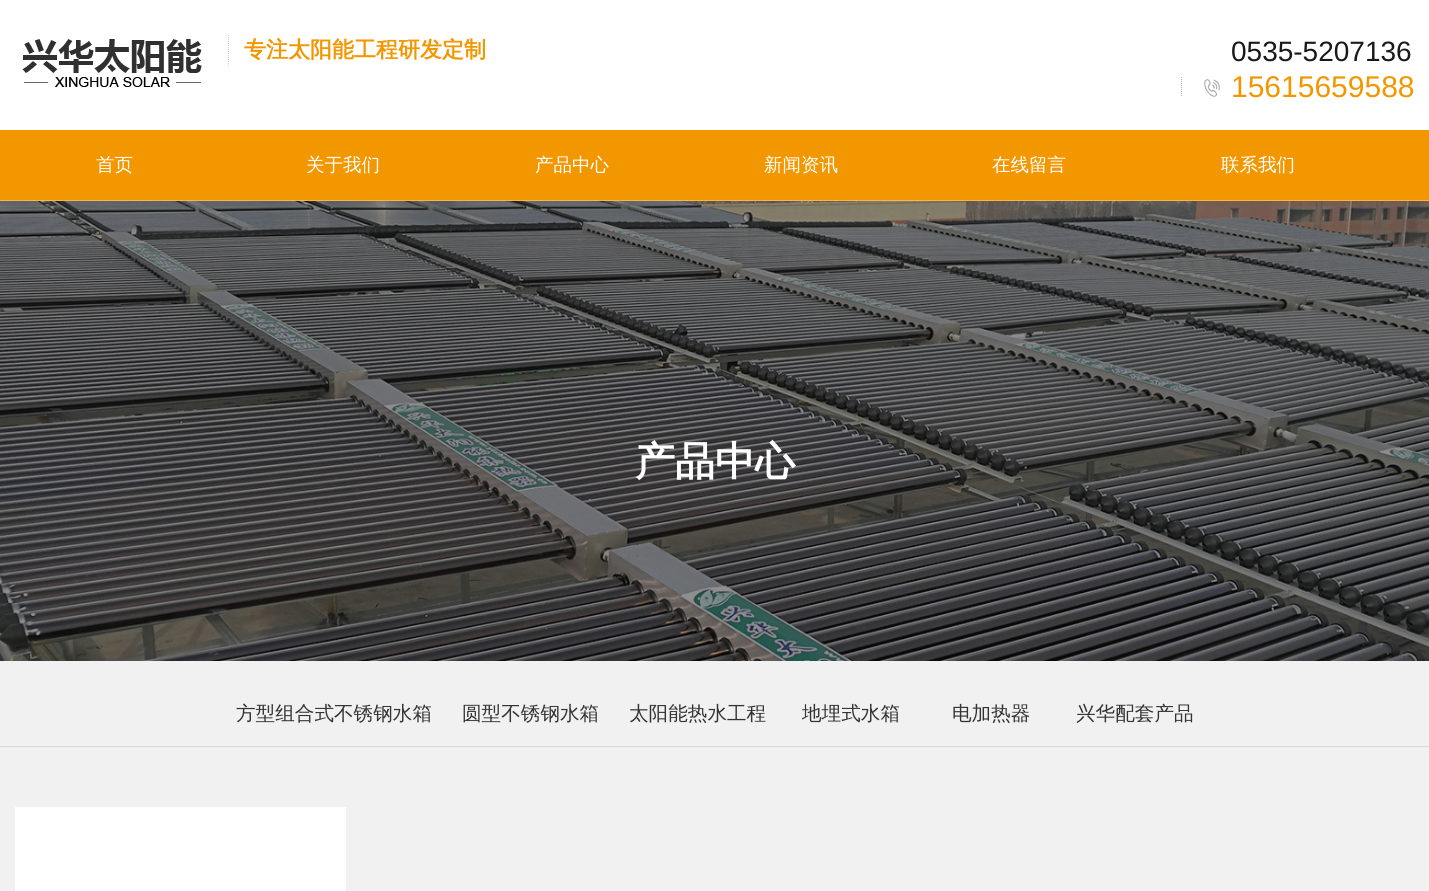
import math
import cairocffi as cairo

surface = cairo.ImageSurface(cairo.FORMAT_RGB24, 1429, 891)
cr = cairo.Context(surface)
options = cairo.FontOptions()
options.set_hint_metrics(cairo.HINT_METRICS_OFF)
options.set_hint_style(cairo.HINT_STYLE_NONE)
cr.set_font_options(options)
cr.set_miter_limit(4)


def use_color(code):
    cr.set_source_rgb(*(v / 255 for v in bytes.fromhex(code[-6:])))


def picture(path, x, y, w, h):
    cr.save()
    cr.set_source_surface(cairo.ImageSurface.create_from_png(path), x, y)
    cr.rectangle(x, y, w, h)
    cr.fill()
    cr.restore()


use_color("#ffffff")
cr.paint()
picture("img1.png", 22, 39, 180, 48)
cr.new_path()
cr.move_to(228.5, 35)
cr.line_to(228.5, 66)
use_color("#cccccc")
cr.set_line_width(1)
cr.set_dash([1, 1])
cr.stroke()
cr.select_font_face("WenQuanYi Zen Hei", cairo.FONT_SLANT_NORMAL, cairo.FONT_WEIGHT_BOLD)
cr.set_font_size(22)
use_color("#f39701")
cr.move_to(244, 57)
cr.show_text("专注太阳能工程研发定制")
picture("img2.png", 1181, 77, 39, 20)
cr.select_font_face("Liberation Sans")
cr.set_font_size(28)
use_color("#191919")
cr.move_to(1231, 61)
cr.show_text("0535-5207136")
cr.set_font_size(30)
use_color("#f39701")
cr.move_to(1231, 97)
cr.show_text("15615659588")
cr.rectangle(0, 130, 1429, 70)
cr.fill()
use_color("#f7b64d")
cr.rectangle(0, 200, 1429, 1)
cr.fill()
cr.select_font_face("WenQuanYi Zen Hei Medium")
cr.set_font_size(18.5)
use_color("#ffffff")
cr.move_to(96, 171)
cr.show_text("首页")
cr.move_to(306, 171)
cr.show_text("关于我们")
cr.move_to(535, 171)
cr.show_text("产品中心")
cr.move_to(764, 171)
cr.show_text("新闻资讯")
cr.move_to(992, 171)
cr.show_text("在线留言")
cr.move_to(1221, 171)
cr.show_text("联系我们")
picture("img3.png", 0, 201, 1429, 460)
cr.select_font_face("WenQuanYi Zen Hei", cairo.FONT_SLANT_NORMAL, cairo.FONT_WEIGHT_BOLD)
cr.set_font_size(40)
cr.move_to(635, 475)
cr.show_text("产品中心")
use_color("#f1f1f1")
cr.rectangle(0, 661, 1429, 230)
cr.fill()
use_color("#d9d9d9")
cr.rectangle(0, 746, 1429, 1)
cr.fill()
cr.select_font_face("WenQuanYi Zen Hei Medium")
cr.set_font_size(19.6)
use_color("#333333")
cr.move_to(236, 720)
cr.show_text("方型组合式不锈钢水箱")
cr.move_to(462, 720)
cr.show_text("圆型不锈钢水箱")
cr.move_to(629, 720)
cr.show_text("太阳能热水工程")
cr.move_to(802, 720)
cr.show_text("地埋式水箱")
cr.move_to(952, 720)
cr.show_text("电加热器")
cr.move_to(1076, 720)
cr.show_text("兴华配套产品")
use_color("#ffffff")
cr.rectangle(15, 807, 331, 84)
cr.fill()
surface.write_to_png("result.png")
